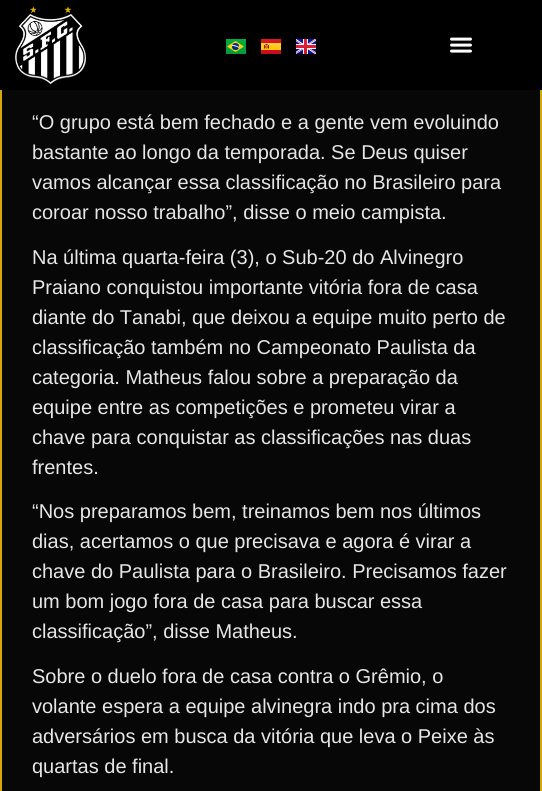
import math
import cairocffi as cairo

surface = cairo.ImageSurface(cairo.FORMAT_RGB24, 542, 791)
cr = cairo.Context(surface)
options = cairo.FontOptions()
options.set_hint_metrics(cairo.HINT_METRICS_OFF)
options.set_hint_style(cairo.HINT_STYLE_NONE)
cr.set_font_options(options)
cr.set_miter_limit(4)


def use_color(code):
    cr.set_source_rgb(*(v / 255 for v in bytes.fromhex(code[-6:])))


def picture(path, x, y, w, h):
    cr.save()
    cr.set_source_surface(cairo.ImageSurface.create_from_png(path), x, y)
    cr.rectangle(x, y, w, h)
    cr.fill()
    cr.restore()


use_color("#070707")
cr.paint()
cr.rectangle(1, -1, 540, 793)
use_color("#d3a809")
cr.stroke()
use_color("#000000")
cr.rectangle(0, 0, 542, 90)
cr.fill()
picture("img1.png", 15, 6, 71, 79)
picture("img2.png", 226, 39, 20, 15)
picture("img3.png", 261, 39, 20, 15)
picture("img4.png", 296, 39, 20, 15)
picture("img5.png", 450, 37, 22, 16)
cr.select_font_face("Liberation Sans")
cr.set_font_size(20)
use_color("#e6e6e6")
cr.move_to(32, 129)
cr.show_text("“O grupo está bem fechado e a gente vem evoluindo")
cr.move_to(32, 159)
cr.show_text("bastante ao longo da temporada. Se Deus quiser")
cr.move_to(32, 189)
cr.show_text("vamos alcançar essa classificação no Brasileiro para")
cr.move_to(32, 219)
cr.show_text("coroar nosso trabalho”, disse o meio campista.")
cr.move_to(32, 264)
cr.show_text("Na última quarta-feira (3), o Sub-20 do Alvinegro")
cr.move_to(32, 294)
cr.show_text("Praiano conquistou importante vitória fora de casa")
cr.move_to(32, 324)
cr.show_text("diante do Tanabi, que deixou a equipe muito perto de")
cr.move_to(32, 354)
cr.show_text("classificação também no Campeonato Paulista da")
cr.move_to(32, 384)
cr.show_text("categoria. Matheus falou sobre a preparação da")
cr.move_to(32, 414)
cr.show_text("equipe entre as competições e prometeu virar a")
cr.move_to(32, 444)
cr.show_text("chave para conquistar as classificações nas duas")
cr.move_to(32, 474)
cr.show_text("frentes.")
cr.move_to(32, 518)
cr.show_text("“Nos preparamos bem, treinamos bem nos últimos")
cr.move_to(32, 548)
cr.show_text("dias, acertamos o que precisava e agora é virar a")
cr.move_to(32, 578)
cr.show_text("chave do Paulista para o Brasileiro. Precisamos fazer")
cr.move_to(32, 608)
cr.show_text("um bom jogo fora de casa para buscar essa")
cr.move_to(32, 638)
cr.show_text("classificação”, disse Matheus.")
cr.move_to(32, 683)
cr.show_text("Sobre o duelo fora de casa contra o Grêmio, o")
cr.move_to(32, 713)
cr.show_text("volante espera a equipe alvinegra indo pra cima dos")
cr.move_to(32, 743)
cr.show_text("adversários em busca da vitória que leva o Peixe às")
cr.move_to(32, 773)
cr.show_text("quartas de final.")
surface.write_to_png("result.png")
